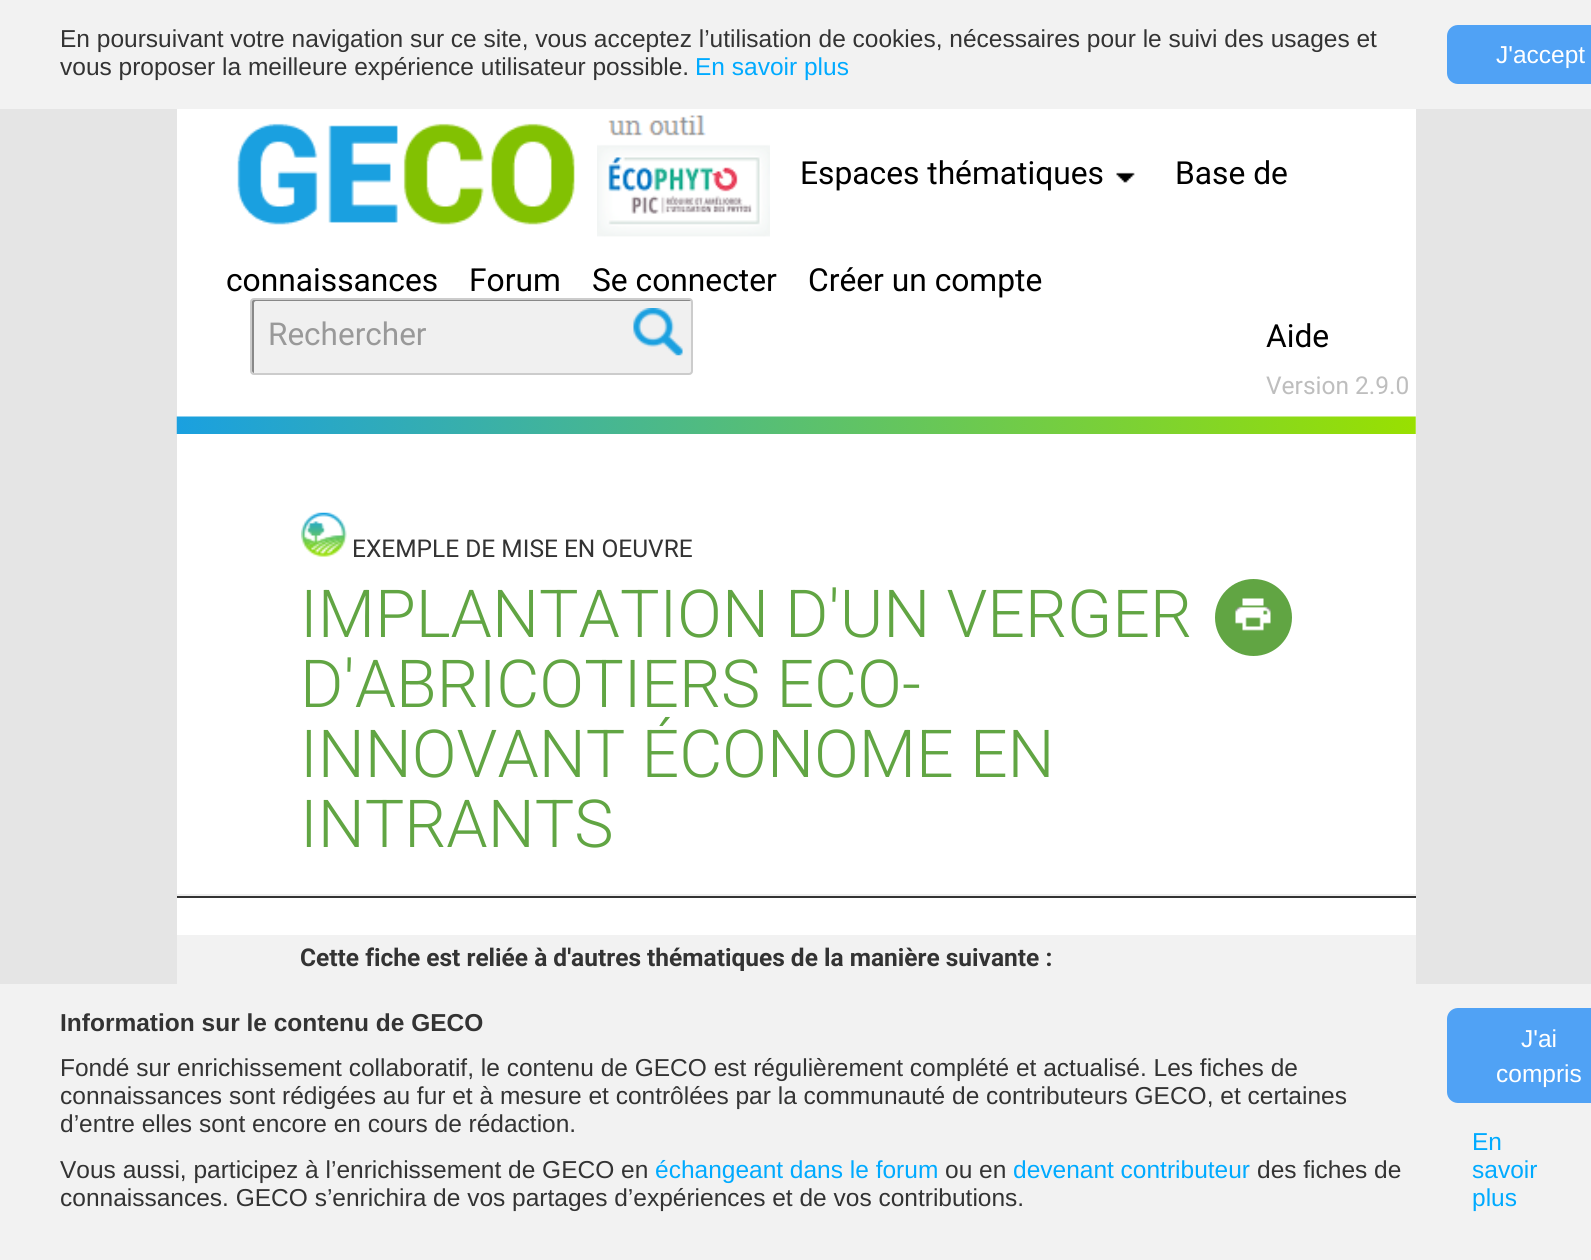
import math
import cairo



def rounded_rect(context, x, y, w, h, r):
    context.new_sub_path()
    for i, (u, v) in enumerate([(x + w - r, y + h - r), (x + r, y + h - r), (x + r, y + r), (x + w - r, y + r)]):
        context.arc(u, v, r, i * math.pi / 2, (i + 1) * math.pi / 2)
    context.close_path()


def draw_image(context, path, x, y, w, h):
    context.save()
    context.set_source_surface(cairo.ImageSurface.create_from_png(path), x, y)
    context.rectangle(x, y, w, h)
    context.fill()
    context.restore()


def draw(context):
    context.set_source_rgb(229 / 255, 229 / 255, 229 / 255)
    context.paint()
    context.set_source_rgb(242 / 255, 242 / 255, 242 / 255)
    context.rectangle(0, 0, 1591, 109)
    context.fill()
    context.set_source_rgb(80 / 255, 162 / 255, 245 / 255)
    rounded_rect(context, 1447, 25, 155, 59, 11)
    context.fill()
    context.set_source_rgb(242 / 255, 242 / 255, 242 / 255)
    context.rectangle(0, 984, 1591, 276)
    context.fill()
    context.set_source_rgb(80 / 255, 162 / 255, 245 / 255)
    rounded_rect(context, 1447, 1008, 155, 95, 11)
    context.fill()
    context.set_source_rgb(1, 1, 1)
    context.rectangle(177, 109, 1239, 826)
    context.fill()
    draw_image(context, "images/1.png", 176, 416, 1240, 18)
    draw_image(context, "images/2.png", 237, 123, 338, 102)
    draw_image(context, "images/3.png", 597, 115, 173, 122)
    draw_image(context, "images/4.png", 1116, 172, 19, 11)
    context.set_source_rgb(240 / 255, 240 / 255, 240 / 255)
    rounded_rect(context, 250, 298, 443, 77, 4)
    context.fill()
    context.set_source_rgb(136 / 255, 136 / 255, 136 / 255)
    context.new_path()
    context.move_to(256, 301)
    context.line_to(691, 301)
    context.curve_to(691, 300, 690, 299, 689, 299)
    context.line_to(254, 299)
    context.curve_to(253, 299, 252, 300, 252, 301)
    context.line_to(252, 371)
    context.curve_to(252, 372, 253, 373, 254, 373)
    context.line_to(254, 303)
    context.curve_to(254, 302, 255, 301, 256, 301)
    context.close_path()
    context.fill()
    rounded_rect(context, 251, 299, 441, 75, 3)
    context.set_source_rgb(204 / 255, 204 / 255, 204 / 255)
    context.stroke()
    draw_image(context, "images/5.png", 633, 308, 50, 48)
    draw_image(context, "images/6.png", 301, 512, 46, 45)
    context.set_source_rgb(97 / 255, 165 / 255, 67 / 255)
    context.arc(1253.5, 617.5, 38.5, 0, 2 * math.pi)
    context.fill()
    draw_image(context, "images/7.png", 1235, 598, 36, 33)
    context.set_source_rgb(51 / 255, 51 / 255, 51 / 255)
    context.rectangle(177, 896, 1239, 2)
    context.fill()
    context.set_source_rgb(238 / 255, 238 / 255, 238 / 255)
    context.rectangle(177, 894, 1239, 2)
    context.fill()
    context.set_source_rgb(242 / 255, 242 / 255, 242 / 255)
    context.rectangle(177, 935, 1239, 49)
    context.fill()
    context.select_font_face("Liberation Sans")
    context.set_font_size(24.5)
    context.set_source_rgb(51 / 255, 51 / 255, 51 / 255)
    context.move_to(60, 47)
    context.show_text("En poursuivant votre navigation sur ce site, vous acceptez l’utilisation de cookies, nécessaires pour le suivi des usages et")
    context.move_to(60, 75)
    context.show_text("vous proposer la meilleure expérience utilisateur possible.")
    context.set_source_rgb(0, 170 / 255, 1)
    context.move_to(695, 75)
    context.show_text("En savoir plus")
    context.set_source_rgb(1, 1, 1)
    context.move_to(1496, 63)
    context.show_text("J'accept")
    context.select_font_face("Liberation Sans", cairo.FontSlant.NORMAL, cairo.FontWeight.BOLD)
    context.set_source_rgb(51 / 255, 51 / 255, 51 / 255)
    context.move_to(60, 1031)
    context.show_text("Information sur le contenu de GECO")
    context.select_font_face("Liberation Sans")
    context.move_to(60, 1076)
    context.show_text("Fondé sur enrichissement collaboratif, le contenu de GECO est régulièrement complété et actualisé. Les fiches de")
    context.move_to(60, 1104)
    context.show_text("connaissances sont rédigées au fur et à mesure et contrôlées par la communauté de contributeurs GECO, et certaines")
    context.move_to(60, 1132)
    context.show_text("d’entre elles sont encore en cours de rédaction.")
    context.move_to(60, 1178)
    context.show_text("Vous aussi, participez à l’enrichissement de GECO en")
    context.set_source_rgb(0, 170 / 255, 1)
    context.move_to(655, 1178)
    context.show_text("échangeant dans le forum")
    context.set_source_rgb(51 / 255, 51 / 255, 51 / 255)
    context.move_to(945, 1178)
    context.show_text("ou en")
    context.set_source_rgb(0, 170 / 255, 1)
    context.move_to(1013, 1178)
    context.show_text("devenant contributeur")
    context.set_source_rgb(51 / 255, 51 / 255, 51 / 255)
    context.move_to(1257, 1178)
    context.show_text("des fiches de")
    context.move_to(60, 1206)
    context.show_text("connaissances. GECO s’enrichira de vos partages d’expériences et de vos contributions.")
    context.set_source_rgb(1, 1, 1)
    context.move_to(1521, 1047)
    context.show_text("J'ai")
    context.move_to(1496, 1082)
    context.show_text("compris")
    context.set_source_rgb(0, 170 / 255, 1)
    context.move_to(1472, 1150)
    context.show_text("En")
    context.move_to(1472, 1178)
    context.show_text("savoir")
    context.move_to(1472, 1206)
    context.show_text("plus")
    context.select_font_face("Roboto")
    context.set_font_size(31.75)
    context.set_source_rgb(0, 0, 0)
    context.move_to(800, 184)
    context.show_text("Espaces thématiques")
    context.move_to(1175, 184)
    context.show_text("Base de")
    context.move_to(226, 291)
    context.show_text("connaissances")
    context.move_to(469, 291)
    context.show_text("Forum")
    context.move_to(592, 291)
    context.show_text("Se connecter")
    context.move_to(808, 291)
    context.show_text("Créer un compte")
    context.set_font_size(31.5)
    context.set_source_rgb(153 / 255, 153 / 255, 153 / 255)
    context.move_to(268, 345)
    context.show_text("Rechercher")
    context.set_font_size(31.75)
    context.set_source_rgb(0, 0, 0)
    context.move_to(1266, 347)
    context.show_text("Aide")
    context.set_font_size(24.5)
    context.set_source_rgb(190 / 255, 190 / 255, 190 / 255)
    context.move_to(1266, 394)
    context.show_text("Version 2.9.0")
    context.set_source_rgb(51 / 255, 51 / 255, 51 / 255)
    context.move_to(352, 557)
    context.show_text("EXEMPLE DE MISE EN OEUVRE")
    context.select_font_face("Roboto Light")
    context.set_font_size(66.2)
    context.set_source_rgb(97 / 255, 165 / 255, 67 / 255)
    context.move_to(300, 637)
    context.show_text("IMPLANTATION D'UN VERGER")
    context.move_to(300, 707)
    context.show_text("D'ABRICOTIERS ECO-")
    context.move_to(300, 777)
    context.show_text("INNOVANT ÉCONOME EN")
    context.move_to(300, 847)
    context.show_text("INTRANTS")
    context.select_font_face("Roboto", cairo.FontSlant.NORMAL, cairo.FontWeight.BOLD)
    context.set_font_size(24.5)
    context.set_source_rgb(51 / 255, 51 / 255, 51 / 255)
    context.move_to(300, 966)
    context.show_text("Cette fiche est reliée à d'autres thématiques de la manière suivante :")


surface = cairo.ImageSurface(cairo.Format.RGB24, 1591, 1260)
context = cairo.Context(surface)
options = cairo.FontOptions()
options.set_hint_metrics(cairo.HintMetrics.OFF)
options.set_hint_style(cairo.HintStyle.NONE)
context.set_font_options(options)
context.set_miter_limit(4)
draw(context)
surface.write_to_png("out.png")
